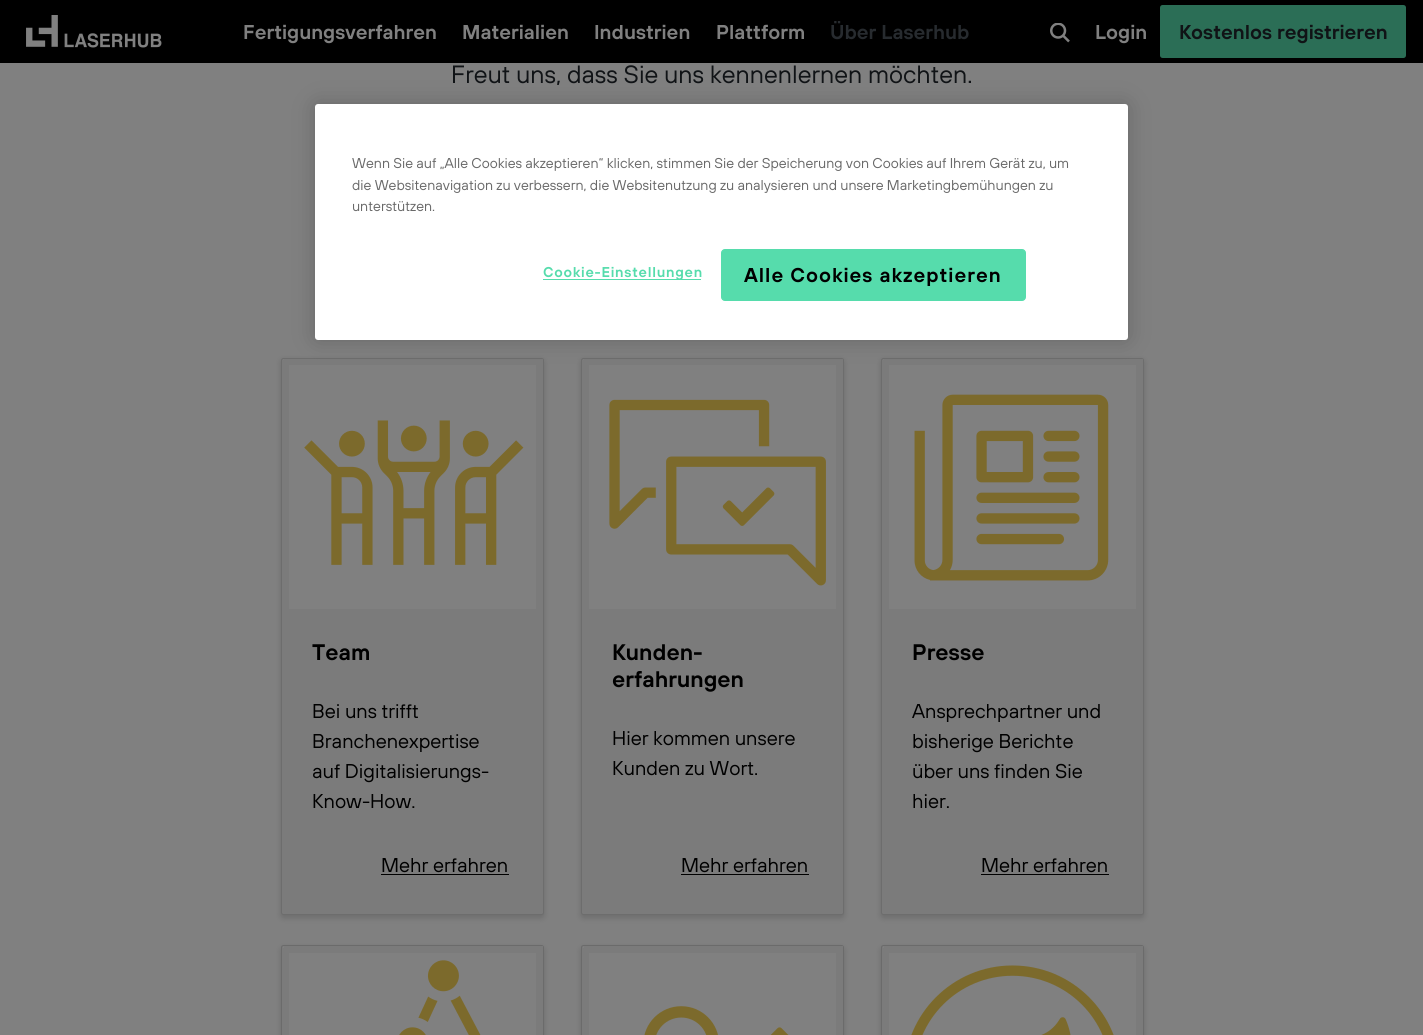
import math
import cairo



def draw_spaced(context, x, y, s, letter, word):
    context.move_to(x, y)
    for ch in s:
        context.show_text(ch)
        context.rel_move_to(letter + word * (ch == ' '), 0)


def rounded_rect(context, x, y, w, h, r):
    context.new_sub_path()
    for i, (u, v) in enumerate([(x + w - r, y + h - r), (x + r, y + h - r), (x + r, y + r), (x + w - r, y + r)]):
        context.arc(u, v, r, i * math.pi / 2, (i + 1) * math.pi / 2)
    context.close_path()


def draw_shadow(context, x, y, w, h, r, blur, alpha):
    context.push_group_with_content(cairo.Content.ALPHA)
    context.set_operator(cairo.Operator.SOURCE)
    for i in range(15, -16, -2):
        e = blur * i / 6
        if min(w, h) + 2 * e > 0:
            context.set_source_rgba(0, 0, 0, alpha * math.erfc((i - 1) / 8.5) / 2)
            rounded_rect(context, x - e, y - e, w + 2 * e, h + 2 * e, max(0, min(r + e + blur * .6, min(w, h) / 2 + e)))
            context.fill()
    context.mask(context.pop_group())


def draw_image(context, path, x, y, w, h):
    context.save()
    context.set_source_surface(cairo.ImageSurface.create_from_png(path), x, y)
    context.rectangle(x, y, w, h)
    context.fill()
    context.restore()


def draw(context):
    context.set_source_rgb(128 / 255, 128 / 255, 128 / 255)
    context.paint()
    context.set_source_rgb(0, 0, 0)
    context.rectangle(0, 0, 1423, 63)
    context.fill()
    draw_image(context, "images/1.png", 26, 15, 136, 33)
    draw_image(context, "images/2.png", 1050, 23, 20, 20)
    context.set_source_rgb(43 / 255, 110 / 255, 86 / 255)
    rounded_rect(context, 1162, 7, 242, 49, 0.5)
    context.fill_preserve()
    context.set_line_width(4)
    context.stroke()
    context.set_source_rgb(0, 0, 0)
    draw_shadow(context, 281, 360, 263, 558, 2.5, 3, 0.15)
    context.set_source_rgb(123 / 255, 123 / 255, 123 / 255)
    rounded_rect(context, 281, 358, 263, 557, 2.5)
    context.fill()
    rounded_rect(context, 281.5, 358.5, 262, 556, 2)
    context.set_source_rgba(0, 0, 0, 0.12)
    context.set_line_width(1)
    context.stroke()
    context.set_source_rgb(128 / 255, 128 / 255, 128 / 255)
    context.new_path()
    context.move_to(284, 359)
    context.line_to(542, 359)
    context.curve_to(542.5, 359, 543, 359.5, 543, 360)
    context.line_to(543, 609)
    context.line_to(283, 609)
    context.line_to(283, 360)
    context.curve_to(283, 359.5, 283.5, 359, 284, 359)
    context.close_path()
    context.fill()
    context.set_source_rgb(123 / 255, 123 / 255, 123 / 255)
    context.rectangle(284, 359, 259, 6)
    context.fill()
    context.rectangle(536, 360, 7, 249)
    context.fill()
    context.rectangle(283, 360, 6, 249)
    context.fill()
    draw_image(context, "images/3.png", 304, 420, 220, 145)
    context.set_source_rgb(0, 0, 0)
    context.rectangle(381, 874, 128, 1)
    context.fill()
    context.set_source_rgb(0, 0, 0)
    draw_shadow(context, 581, 360, 263, 558, 2.5, 3, 0.15)
    context.set_source_rgb(123 / 255, 123 / 255, 123 / 255)
    rounded_rect(context, 581, 358, 263, 557, 2.5)
    context.fill()
    rounded_rect(context, 581.5, 358.5, 262, 556, 2)
    context.set_source_rgba(0, 0, 0, 0.12)
    context.stroke()
    context.set_source_rgb(128 / 255, 128 / 255, 128 / 255)
    context.new_path()
    context.move_to(584, 359)
    context.line_to(842, 359)
    context.curve_to(842.5, 359, 843, 359.5, 843, 360)
    context.line_to(843, 609)
    context.line_to(583, 609)
    context.line_to(583, 360)
    context.curve_to(583, 359.5, 583.5, 359, 584, 359)
    context.close_path()
    context.fill()
    context.set_source_rgb(123 / 255, 123 / 255, 123 / 255)
    context.rectangle(584, 359, 259, 6)
    context.fill()
    context.rectangle(836, 360, 7, 249)
    context.fill()
    context.rectangle(583, 360, 6, 249)
    context.fill()
    draw_image(context, "images/4.png", 609, 399, 217, 187)
    context.set_source_rgb(0, 0, 0)
    context.rectangle(681, 874, 128, 1)
    context.fill()
    context.set_source_rgb(0, 0, 0)
    draw_shadow(context, 881, 360, 263, 558, 2.5, 3, 0.15)
    context.set_source_rgb(123 / 255, 123 / 255, 123 / 255)
    rounded_rect(context, 881, 358, 263, 557, 2.5)
    context.fill()
    rounded_rect(context, 881.5, 358.5, 262, 556, 2)
    context.set_source_rgba(0, 0, 0, 0.12)
    context.stroke()
    context.set_source_rgb(128 / 255, 128 / 255, 128 / 255)
    context.new_path()
    context.move_to(884, 359)
    context.line_to(1142, 359)
    context.curve_to(1142.5, 359, 1143, 359.5, 1143, 360)
    context.line_to(1143, 609)
    context.line_to(883, 609)
    context.line_to(883, 360)
    context.curve_to(883, 359.5, 883.5, 359, 884, 359)
    context.close_path()
    context.fill()
    context.set_source_rgb(123 / 255, 123 / 255, 123 / 255)
    context.rectangle(884, 359, 259, 6)
    context.fill()
    context.rectangle(1136, 360, 7, 249)
    context.fill()
    context.rectangle(883, 360, 6, 249)
    context.fill()
    draw_image(context, "images/5.png", 914, 394, 195, 187)
    context.set_source_rgb(0, 0, 0)
    context.rectangle(981, 874, 128, 1)
    context.fill()
    context.set_source_rgb(0, 0, 0)
    draw_shadow(context, 281, 948, 263, 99, 2.5, 3, 0.15)
    context.set_source_rgb(123 / 255, 123 / 255, 123 / 255)
    rounded_rect(context, 281.5, 945.5, 262, 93, 2)
    context.fill_preserve()
    context.set_source_rgb(107 / 255, 107 / 255, 107 / 255)
    context.stroke()
    context.set_source_rgb(128 / 255, 128 / 255, 128 / 255)
    context.new_path()
    context.move_to(284, 946)
    context.line_to(542, 946)
    context.curve_to(542.5, 946, 543, 946.5, 543, 947)
    context.line_to(543, 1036)
    context.line_to(283, 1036)
    context.line_to(283, 947)
    context.curve_to(283, 946.5, 283.5, 946, 284, 946)
    context.close_path()
    context.fill()
    context.set_source_rgb(123 / 255, 123 / 255, 123 / 255)
    context.rectangle(284, 946, 259, 7)
    context.fill()
    context.rectangle(536, 948, 7, 87)
    context.fill()
    context.rectangle(283, 948, 6, 87)
    context.fill()
    draw_image(context, "images/6.png", 399, 960, 82, 75)
    context.set_source_rgb(0, 0, 0)
    draw_shadow(context, 581, 948, 263, 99, 2.5, 3, 0.15)
    context.set_source_rgb(123 / 255, 123 / 255, 123 / 255)
    rounded_rect(context, 581.5, 945.5, 262, 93, 2)
    context.fill_preserve()
    context.set_source_rgb(107 / 255, 107 / 255, 107 / 255)
    context.stroke()
    context.set_source_rgb(128 / 255, 128 / 255, 128 / 255)
    context.new_path()
    context.move_to(584, 946)
    context.line_to(842, 946)
    context.curve_to(842.5, 946, 843, 946.5, 843, 947)
    context.line_to(843, 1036)
    context.line_to(583, 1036)
    context.line_to(583, 947)
    context.curve_to(583, 946.5, 583.5, 946, 584, 946)
    context.close_path()
    context.fill()
    context.set_source_rgb(123 / 255, 123 / 255, 123 / 255)
    context.rectangle(584, 946, 259, 7)
    context.fill()
    context.rectangle(836, 948, 7, 87)
    context.fill()
    context.rectangle(583, 948, 6, 87)
    context.fill()
    draw_image(context, "images/7.png", 644, 1006, 145, 29)
    context.set_source_rgb(0, 0, 0)
    draw_shadow(context, 881, 948, 263, 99, 2.5, 3, 0.15)
    context.set_source_rgb(123 / 255, 123 / 255, 123 / 255)
    rounded_rect(context, 881.5, 945.5, 262, 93, 2)
    context.fill_preserve()
    context.set_source_rgb(107 / 255, 107 / 255, 107 / 255)
    context.stroke()
    context.set_source_rgb(128 / 255, 128 / 255, 128 / 255)
    context.new_path()
    context.move_to(884, 946)
    context.line_to(1142, 946)
    context.curve_to(1142.5, 946, 1143, 946.5, 1143, 947)
    context.line_to(1143, 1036)
    context.line_to(883, 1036)
    context.line_to(883, 947)
    context.curve_to(883, 946.5, 883.5, 946, 884, 946)
    context.close_path()
    context.fill()
    context.set_source_rgb(123 / 255, 123 / 255, 123 / 255)
    context.rectangle(884, 946, 259, 7)
    context.fill()
    context.rectangle(1136, 948, 7, 87)
    context.fill()
    context.rectangle(883, 948, 6, 87)
    context.fill()
    draw_image(context, "images/8.png", 911, 965, 203, 70)
    context.set_source_rgb(0, 0, 0)
    draw_shadow(context, 315, 104, 813, 236, 3, 11, 0.2)
    context.set_source_rgb(1, 1, 1)
    rounded_rect(context, 315, 104, 813, 236, 3)
    context.fill()
    context.set_source_rgb(86 / 255, 220 / 255, 172 / 255)
    context.rectangle(543, 279, 158, 1)
    context.fill()
    rounded_rect(context, 721.5, 249.5, 304, 51, 3.5)
    context.fill_preserve()
    context.stroke()
    context.select_font_face("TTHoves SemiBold")
    context.set_font_size(20)
    context.set_source_rgb(128 / 255, 128 / 255, 128 / 255)
    context.move_to(243, 39)
    context.show_text("Fertigungsverfahren")
    context.move_to(462, 39)
    context.show_text("Materialien")
    context.move_to(594, 39)
    context.show_text("Industrien")
    context.move_to(716, 39)
    context.show_text("Plattform")
    context.set_source_rgb(39 / 255, 43 / 255, 47 / 255)
    context.move_to(830, 39)
    context.show_text("Über Laserhub")
    context.set_source_rgb(128 / 255, 128 / 255, 128 / 255)
    context.move_to(1095, 39)
    context.show_text("Login")
    context.set_source_rgb(16 / 255, 19 / 255, 22 / 255)
    context.move_to(1179, 39)
    context.show_text("Kostenlos registrieren")
    context.select_font_face("TTHoves")
    context.set_font_size(25)
    context.move_to(451, 83)
    context.show_text("Freut uns, dass Sie uns kennenlernen möchten.")
    context.select_font_face("TTHoves SemiBold")
    context.set_font_size(22.5)
    context.set_source_rgb(0, 0, 0)
    context.move_to(312, 660)
    context.show_text("Team")
    context.select_font_face("TTHoves")
    context.set_font_size(20)
    context.move_to(312, 718)
    context.show_text("Bei uns trifft")
    context.move_to(312, 748)
    context.show_text("Branchenexpertise")
    context.move_to(312, 778)
    context.show_text("auf Digitalisierungs-")
    context.move_to(312, 808)
    context.show_text("Know-How.")
    context.move_to(381, 872)
    context.show_text("Mehr erfahren")
    context.select_font_face("TTHoves SemiBold")
    context.set_font_size(22.5)
    context.move_to(612, 660)
    context.show_text("Kunden-")
    context.move_to(612, 687)
    context.show_text("erfahrungen")
    context.select_font_face("TTHoves")
    context.set_font_size(20)
    context.move_to(612, 745)
    context.show_text("Hier kommen unsere")
    context.move_to(612, 775)
    context.show_text("Kunden zu Wort.")
    context.move_to(681, 872)
    context.show_text("Mehr erfahren")
    context.select_font_face("TTHoves SemiBold")
    context.set_font_size(22.5)
    context.move_to(912, 660)
    context.show_text("Presse")
    context.select_font_face("TTHoves")
    context.set_font_size(20)
    context.move_to(912, 718)
    context.show_text("Ansprechpartner und")
    context.move_to(912, 748)
    context.show_text("bisherige Berichte")
    context.move_to(912, 778)
    context.show_text("über uns finden Sie")
    context.move_to(912, 808)
    context.show_text("hier.")
    context.move_to(981, 872)
    context.show_text("Mehr erfahren")
    context.set_font_size(14.23)
    context.set_source_rgb(105 / 255, 105 / 255, 105 / 255)
    context.move_to(352, 168)
    context.show_text("Wenn Sie auf „Alle Cookies akzeptieren“ klicken, stimmen Sie der Speicherung von Cookies auf Ihrem Gerät zu, um")
    context.move_to(352, 190)
    context.show_text("die Websitenavigation zu verbessern, die Websitenutzung zu analysieren und unsere Marketingbemühungen zu")
    context.move_to(352, 211)
    context.show_text("unterstützen.")
    context.select_font_face("TTHoves SemiBold")
    context.set_source_rgb(86 / 255, 220 / 255, 172 / 255)
    draw_spaced(context, 543, 277, "Cookie-Einstellungen", 0.75, 0)
    context.set_font_size(20)
    context.set_source_rgb(0, 0, 0)
    draw_spaced(context, 744, 282, "Alle Cookies akzeptieren", 1, 0)


surface = cairo.ImageSurface(cairo.Format.RGB24, 1423, 1035)
context = cairo.Context(surface)
options = cairo.FontOptions()
options.set_hint_metrics(cairo.HintMetrics.OFF)
options.set_hint_style(cairo.HintStyle.NONE)
context.set_font_options(options)
context.set_miter_limit(4)
draw(context)
surface.write_to_png("out.png")
